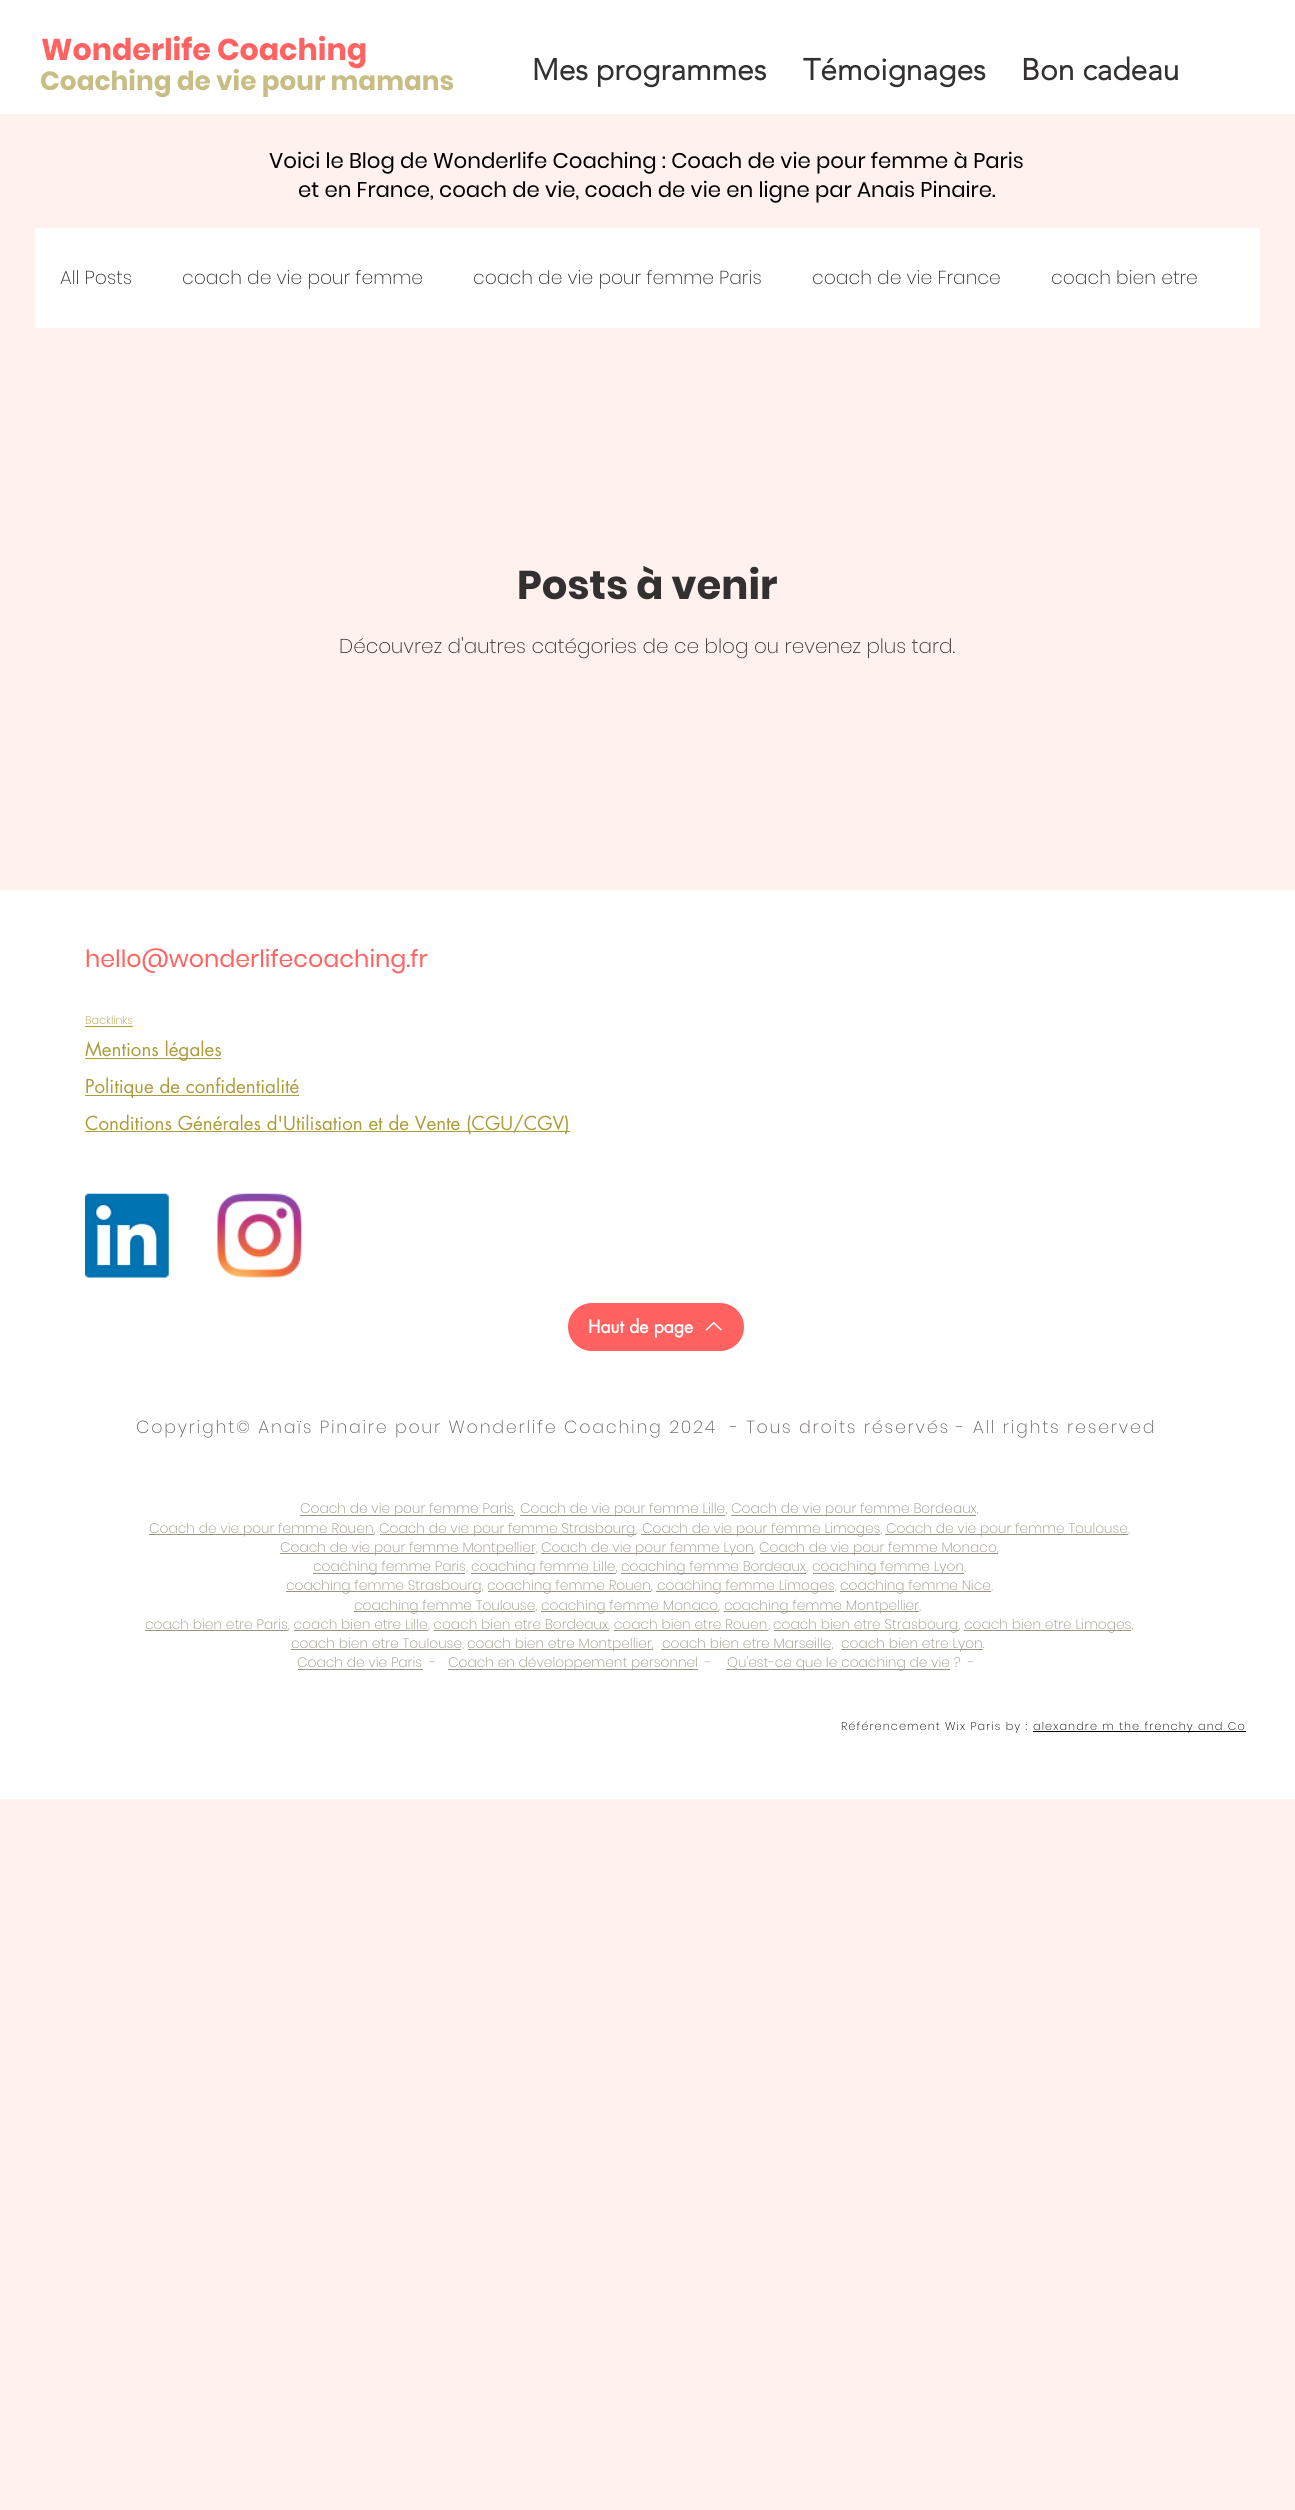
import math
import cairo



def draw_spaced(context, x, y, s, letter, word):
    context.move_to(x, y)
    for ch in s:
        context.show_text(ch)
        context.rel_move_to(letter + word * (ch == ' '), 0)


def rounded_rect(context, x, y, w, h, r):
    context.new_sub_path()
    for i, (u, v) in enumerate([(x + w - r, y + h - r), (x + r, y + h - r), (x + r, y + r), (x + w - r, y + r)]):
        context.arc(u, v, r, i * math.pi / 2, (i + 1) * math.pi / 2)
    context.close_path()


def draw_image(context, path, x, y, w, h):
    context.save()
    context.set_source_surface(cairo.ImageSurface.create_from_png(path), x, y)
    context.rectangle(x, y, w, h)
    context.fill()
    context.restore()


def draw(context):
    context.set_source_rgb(1, 242 / 255, 238 / 255)
    context.paint()
    context.set_source_rgb(1, 1, 1)
    context.rectangle(0, 0, 1295, 114)
    context.fill()
    context.rectangle(35, 228, 1225, 100)
    context.fill()
    context.rectangle(0, 890, 1295, 909)
    context.fill()
    context.set_source_rgb(172 / 255, 156 / 255, 58 / 255)
    context.rectangle(85, 1026, 48, 1)
    context.fill()
    context.rectangle(85, 1058, 136, 1)
    context.fill()
    context.rectangle(85, 1095, 214, 1)
    context.fill()
    context.rectangle(85, 1131, 485, 1)
    context.fill()
    draw_image(context, "images/1.png", 85, 1193, 84, 85)
    draw_image(context, "images/2.png", 217, 1193, 85, 85)
    context.set_source_rgb(1, 98 / 255, 96 / 255)
    rounded_rect(context, 568, 1303, 176, 48, 24)
    context.fill()
    draw_image(context, "images/3.png", 705, 1322, 17, 9)
    context.set_source_rgb(152 / 255, 147 / 255, 131 / 255)
    context.rectangle(300, 1515, 214, 1)
    context.fill()
    context.rectangle(520, 1515, 205, 1)
    context.fill()
    context.rectangle(731, 1515, 245, 1)
    context.fill()
    context.rectangle(149, 1534, 225, 1)
    context.fill()
    context.rectangle(380, 1534, 256, 1)
    context.fill()
    context.rectangle(641, 1534, 239, 1)
    context.fill()
    context.rectangle(885, 1534, 243, 1)
    context.fill()
    context.rectangle(280, 1553, 255, 1)
    context.fill()
    context.rectangle(541, 1553, 213, 1)
    context.fill()
    context.rectangle(760, 1553, 238, 1)
    context.fill()
    context.rectangle(313, 1573, 152, 1)
    context.fill()
    context.rectangle(471, 1573, 145, 1)
    context.fill()
    context.rectangle(621, 1573, 185, 1)
    context.fill()
    context.rectangle(813, 1573, 151, 1)
    context.fill()
    context.rectangle(286, 1591, 195, 1)
    context.fill()
    context.rectangle(488, 1591, 163, 1)
    context.fill()
    context.rectangle(656, 1591, 178, 1)
    context.fill()
    context.rectangle(840, 1591, 151, 1)
    context.fill()
    context.rectangle(354, 1611, 181, 1)
    context.fill()
    context.rectangle(541, 1611, 178, 1)
    context.fill()
    context.rectangle(724, 1611, 195, 1)
    context.fill()
    context.rectangle(145, 1630, 143, 1)
    context.fill()
    context.rectangle(294, 1630, 134, 1)
    context.fill()
    context.rectangle(434, 1630, 175, 1)
    context.fill()
    context.rectangle(614, 1630, 154, 1)
    context.fill()
    context.rectangle(774, 1630, 185, 1)
    context.fill()
    context.rectangle(964, 1630, 167, 1)
    context.fill()
    context.rectangle(291, 1649, 170, 1)
    context.fill()
    context.rectangle(468, 1649, 185, 1)
    context.fill()
    context.rectangle(661, 1649, 170, 1)
    context.fill()
    context.rectangle(841, 1649, 142, 1)
    context.fill()
    context.rectangle(298, 1669, 125, 1)
    context.fill()
    context.rectangle(448, 1669, 250, 1)
    context.fill()
    context.rectangle(726, 1669, 224, 1)
    context.fill()
    context.set_source_rgb(0, 0, 0)
    context.rectangle(1033, 1731, 213, 1)
    context.fill()
    context.select_font_face("Poppins", cairo.FontSlant.NORMAL, cairo.FontWeight.BOLD)
    context.set_font_size(30)
    context.set_source_rgb(1, 98 / 255, 96 / 255)
    context.move_to(41, 60)
    context.show_text("Wonderlife Coaching")
    context.set_font_size(26.25)
    context.set_source_rgb(200 / 255, 190 / 255, 133 / 255)
    context.move_to(40, 90)
    context.show_text("Coaching de vie pour mamans")
    context.select_font_face("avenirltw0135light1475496", cairo.FontSlant.NORMAL, cairo.FontWeight.BOLD)
    context.set_font_size(30)
    context.set_source_rgb(51 / 255, 48 / 255, 48 / 255)
    context.move_to(532, 80)
    context.show_text("Mes programmes")
    context.move_to(803, 80)
    context.show_text("Témoignages")
    context.move_to(1021, 80)
    context.show_text("Bon cadeau")
    context.select_font_face("Poppins")
    context.set_font_size(21.25)
    context.set_source_rgb(0, 0, 0)
    context.move_to(269, 168)
    context.show_text("Voici le Blog de Wonderlife Coaching : Coach de vie pour femme à Paris")
    context.move_to(298, 197)
    context.show_text("et en France, coach de vie, coach de vie en ligne par Anais Pinaire.")
    context.select_font_face("Poppins ExtraLight")
    context.set_font_size(18.75)
    context.set_source_rgb(51 / 255, 48 / 255, 48 / 255)
    context.move_to(60, 284)
    context.show_text("All Posts")
    context.move_to(182, 284)
    context.show_text("coach de vie pour femme")
    context.move_to(473, 284)
    context.show_text("coach de vie pour femme Paris")
    context.move_to(812, 284)
    context.show_text("coach de vie France")
    context.move_to(1051, 284)
    context.show_text("coach bien etre")
    context.select_font_face("Poppins", cairo.FontSlant.NORMAL, cairo.FontWeight.BOLD)
    context.set_font_size(40)
    context.move_to(517, 599)
    context.show_text("Posts à venir")
    context.select_font_face("Poppins ExtraLight")
    context.set_font_size(20)
    context.move_to(339, 653)
    context.show_text("Découvrez d'autres catégories de ce blog ou revenez plus tard.")
    context.select_font_face("Poppins")
    context.set_font_size(23.75)
    context.set_source_rgb(1, 98 / 255, 96 / 255)
    context.move_to(85, 967)
    context.show_text("hello@wonderlifecoaching.fr")
    context.select_font_face("Poppins ExtraLight")
    context.set_font_size(11.25)
    context.set_source_rgb(172 / 255, 156 / 255, 58 / 255)
    context.move_to(85, 1024)
    context.show_text("Backlinks")
    context.select_font_face("futura")
    context.set_font_size(18.75)
    context.move_to(85, 1056)
    context.show_text("Mentions légales")
    context.move_to(85, 1093)
    context.show_text("Politique de confidentialité")
    context.move_to(85, 1130)
    context.show_text("Conditions Générales d'Utilisation et de Vente (CGU/CGV)")
    context.select_font_face("futura", cairo.FontSlant.NORMAL, cairo.FontWeight.BOLD)
    context.set_font_size(17.5)
    context.set_source_rgb(1, 1, 1)
    context.move_to(588, 1333)
    context.show_text("Haut de page")
    context.select_font_face("Poppins ExtraLight")
    context.set_source_rgb(102 / 255, 97 / 255, 95 / 255)
    draw_spaced(context, 136, 1433, "Copyright© Anaïs Pinaire pour Wonderlife Coaching 2024  - Tous droits réservés - All rights reserved", 1.75, 0)
    context.set_font_size(13.75)
    context.set_source_rgb(152 / 255, 147 / 255, 131 / 255)
    context.move_to(300, 1513)
    context.show_text("Coach de vie pour femme Paris,")
    context.move_to(520, 1513)
    context.show_text("Coach de vie pour femme Lille,")
    context.move_to(731, 1513)
    context.show_text("Coach de vie pour femme Bordeaux,")
    context.move_to(149, 1533)
    context.show_text("Coach de vie pour femme Rouen,")
    context.move_to(379, 1533)
    context.show_text("Coach de vie pour femme Strasbourg,")
    context.move_to(642, 1533)
    context.show_text("Coach de vie pour femme Limoges,")
    context.move_to(886, 1533)
    context.show_text("Coach de vie pour femme Toulouse,")
    context.move_to(280, 1552)
    context.show_text("Coach de vie pour femme Montpellier,")
    context.move_to(541, 1552)
    context.show_text("Coach de vie pour femme Lyon,")
    context.move_to(759, 1552)
    context.show_text("Coach de vie pour femme Monaco,")
    context.move_to(313, 1571)
    context.show_text("coaching femme Paris,")
    context.move_to(471, 1571)
    context.show_text("coaching femme Lille,")
    context.move_to(621, 1571)
    context.show_text("coaching femme Bordeaux,")
    context.move_to(812, 1571)
    context.show_text("coaching femme Lyon,")
    context.move_to(286, 1590)
    context.show_text("coaching femme Strasbourg,")
    context.move_to(487, 1590)
    context.show_text("coaching femme Rouen,")
    context.move_to(657, 1590)
    context.show_text("coaching femme Limoges,")
    context.move_to(840, 1590)
    context.show_text("coaching femme Nice,")
    context.move_to(354, 1610)
    context.show_text("coaching femme Toulouse,")
    context.move_to(541, 1610)
    context.show_text("coaching femme Monaco,")
    context.move_to(724, 1610)
    context.show_text("coaching femme Montpellier,")
    context.move_to(145, 1629)
    context.show_text("coach bien etre Paris, coach bien etre Lille, coach bien etre Bordeaux")
    context.move_to(608, 1629)
    context.show_text(", coach bien etre Rouen")
    context.move_to(768, 1629)
    context.show_text(",")
    context.move_to(773, 1629)
    context.show_text("coach bien etre Strasbourg,")
    context.move_to(964, 1629)
    context.show_text("coach bien etre Limoges,")
    context.move_to(291, 1648)
    context.show_text("coach bien etre Toulouse,")
    context.move_to(467, 1648)
    context.show_text("coach bien etre Montpellier,")
    context.move_to(662, 1648)
    context.show_text("coach bien etre Marseille,")
    context.move_to(841, 1648)
    context.show_text("coach bien etre Lyon.")
    context.move_to(297, 1667)
    context.show_text("Coach de vie Paris")
    context.move_to(430, 1667)
    context.show_text("-")
    context.move_to(448, 1667)
    context.show_text("Coach en développement personnel")
    context.move_to(705, 1667)
    context.show_text("-")
    context.move_to(727, 1667)
    context.show_text("Qu'est-ce que le coaching de vie ?  -")
    context.set_font_size(11.25)
    context.set_source_rgb(0, 0, 0)
    draw_spaced(context, 841, 1730, "Référencement Wix Paris by :", 1.1, 0)
    draw_spaced(context, 1033, 1730, "alexandre m the frenchy and Co", 1.1, 0)


surface = cairo.ImageSurface(cairo.Format.RGB24, 1295, 2510)
context = cairo.Context(surface)
options = cairo.FontOptions()
options.set_hint_metrics(cairo.HintMetrics.OFF)
options.set_hint_style(cairo.HintStyle.NONE)
context.set_font_options(options)
context.set_miter_limit(4)
draw(context)
surface.write_to_png("out.png")
